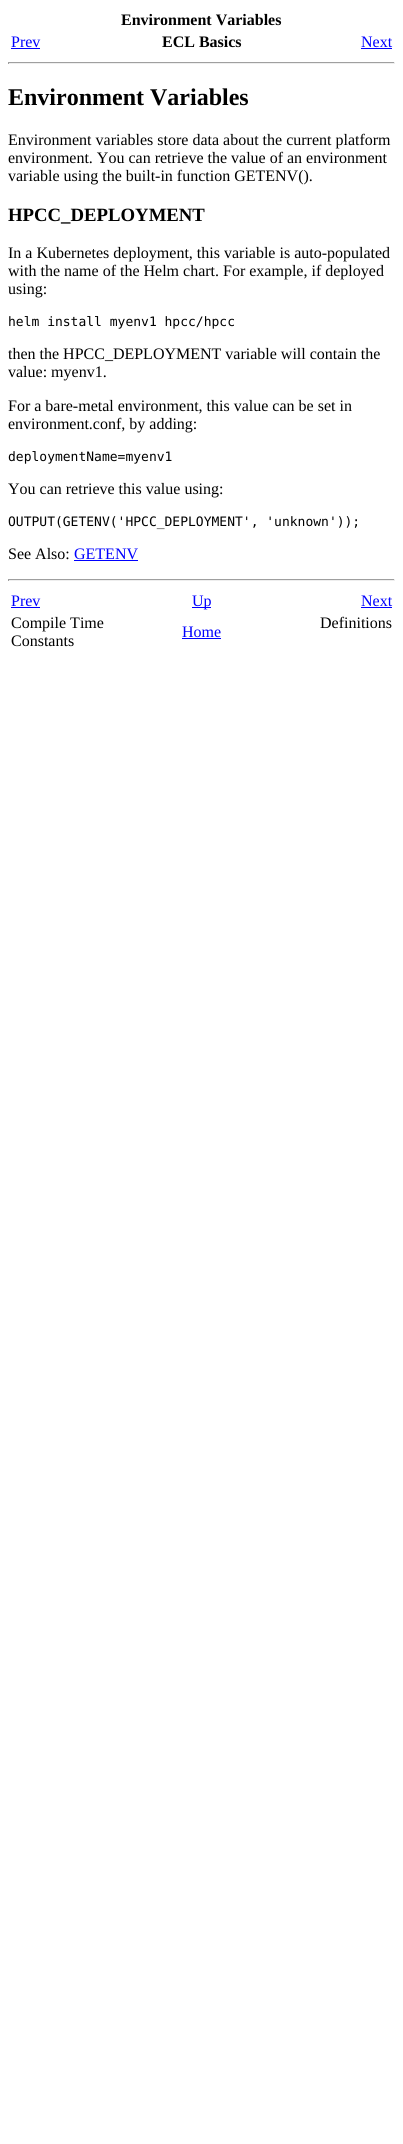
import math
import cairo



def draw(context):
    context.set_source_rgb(1, 1, 1)
    context.paint()
    context.set_source_rgb(0, 0, 1)
    context.rectangle(11, 48, 29, 1)
    context.fill()
    context.rectangle(361, 48, 31, 1)
    context.fill()
    context.set_source_rgb(159 / 255, 159 / 255, 159 / 255)
    context.rectangle(8, 62, 387, 1)
    context.fill()
    context.set_source_rgb(238 / 255, 238 / 255, 238 / 255)
    context.rectangle(394, 62, 1, 2)
    context.fill()
    context.rectangle(8, 63, 387, 1)
    context.fill()
    context.set_source_rgb(159 / 255, 159 / 255, 159 / 255)
    context.rectangle(8, 62, 1, 2)
    context.fill()
    context.set_source_rgb(0, 0, 1)
    context.rectangle(74, 560, 64, 1)
    context.fill()
    context.set_source_rgb(159 / 255, 159 / 255, 159 / 255)
    context.rectangle(8, 579, 387, 1)
    context.fill()
    context.set_source_rgb(238 / 255, 238 / 255, 238 / 255)
    context.rectangle(394, 579, 1, 2)
    context.fill()
    context.rectangle(8, 580, 387, 1)
    context.fill()
    context.set_source_rgb(159 / 255, 159 / 255, 159 / 255)
    context.rectangle(8, 579, 1, 2)
    context.fill()
    context.set_source_rgb(0, 0, 1)
    context.rectangle(11, 607, 29, 1)
    context.fill()
    context.rectangle(192, 607, 19, 1)
    context.fill()
    context.rectangle(361, 607, 31, 1)
    context.fill()
    context.rectangle(182, 638, 39, 1)
    context.fill()
    context.select_font_face("Liberation Serif", cairo.FontSlant.NORMAL, cairo.FontWeight.BOLD)
    context.set_font_size(16)
    context.set_source_rgb(0, 0, 0)
    context.move_to(121, 25)
    context.show_text("Environment Variables")
    context.select_font_face("Liberation Serif")
    context.set_source_rgb(0, 0, 1)
    context.move_to(11, 47)
    context.show_text("Prev")
    context.select_font_face("Liberation Serif", cairo.FontSlant.NORMAL, cairo.FontWeight.BOLD)
    context.set_source_rgb(0, 0, 0)
    context.move_to(162, 47)
    context.show_text("ECL Basics")
    context.select_font_face("Liberation Serif")
    context.set_source_rgb(0, 0, 1)
    context.move_to(361, 47)
    context.show_text("Next")
    context.select_font_face("Liberation Serif", cairo.FontSlant.NORMAL, cairo.FontWeight.BOLD)
    context.set_font_size(24)
    context.set_source_rgb(0, 0, 0)
    context.move_to(8, 105)
    context.show_text("Environment Variables")
    context.select_font_face("Liberation Serif")
    context.set_font_size(16)
    context.move_to(8, 145)
    context.show_text("Environment variables store data about the current platform")
    context.move_to(8, 163)
    context.show_text("environment. You can retrieve the value of an environment")
    context.move_to(8, 181)
    context.show_text("variable using the built-in function GETENV().")
    context.select_font_face("Liberation Serif", cairo.FontSlant.NORMAL, cairo.FontWeight.BOLD)
    context.set_font_size(18.75)
    context.move_to(8, 221)
    context.show_text("HPCC_DEPLOYMENT")
    context.select_font_face("Liberation Serif")
    context.set_font_size(16)
    context.move_to(8, 258)
    context.show_text("In a Kubernetes deployment, this variable is auto-populated")
    context.move_to(8, 276)
    context.show_text("with the name of the Helm chart. For example, if deployed")
    context.move_to(8, 294)
    context.show_text("using:")
    context.select_font_face("DejaVu Sans Mono")
    context.set_font_size(13)
    context.move_to(8, 326)
    context.show_text("helm install myenv1 hpcc/hpcc")
    context.select_font_face("Liberation Serif")
    context.set_font_size(16)
    context.move_to(8, 359)
    context.show_text("then the HPCC_DEPLOYMENT variable will contain the")
    context.move_to(8, 377)
    context.show_text("value: myenv1.")
    context.move_to(8, 411)
    context.show_text("For a bare-metal environment, this value can be set in")
    context.move_to(8, 429)
    context.show_text("environment.conf, by adding:")
    context.select_font_face("DejaVu Sans Mono")
    context.set_font_size(13)
    context.move_to(8, 461)
    context.show_text("deploymentName=myenv1")
    context.select_font_face("Liberation Serif")
    context.set_font_size(16)
    context.move_to(8, 494)
    context.show_text("You can retrieve this value using:")
    context.select_font_face("DejaVu Sans Mono")
    context.set_font_size(13)
    context.move_to(8, 526)
    context.show_text("OUTPUT(GETENV('HPCC_DEPLOYMENT', 'unknown'));")
    context.select_font_face("Liberation Serif")
    context.set_font_size(16)
    context.move_to(8, 559)
    context.show_text("See Also:")
    context.set_source_rgb(0, 0, 1)
    context.move_to(74, 559)
    context.show_text("GETENV")
    context.move_to(11, 606)
    context.show_text("Prev")
    context.move_to(192, 606)
    context.show_text("Up")
    context.move_to(361, 606)
    context.show_text("Next")
    context.set_source_rgb(0, 0, 0)
    context.move_to(11, 628)
    context.show_text("Compile Time")
    context.move_to(11, 646)
    context.show_text("Constants")
    context.move_to(320, 628)
    context.show_text("Definitions")
    context.set_source_rgb(0, 0, 1)
    context.move_to(182, 637)
    context.show_text("Home")


surface = cairo.ImageSurface(cairo.Format.RGB24, 403, 2144)
context = cairo.Context(surface)
options = cairo.FontOptions()
options.set_hint_metrics(cairo.HintMetrics.OFF)
options.set_hint_style(cairo.HintStyle.NONE)
context.set_font_options(options)
context.set_miter_limit(4)
draw(context)
surface.write_to_png("out.png")
